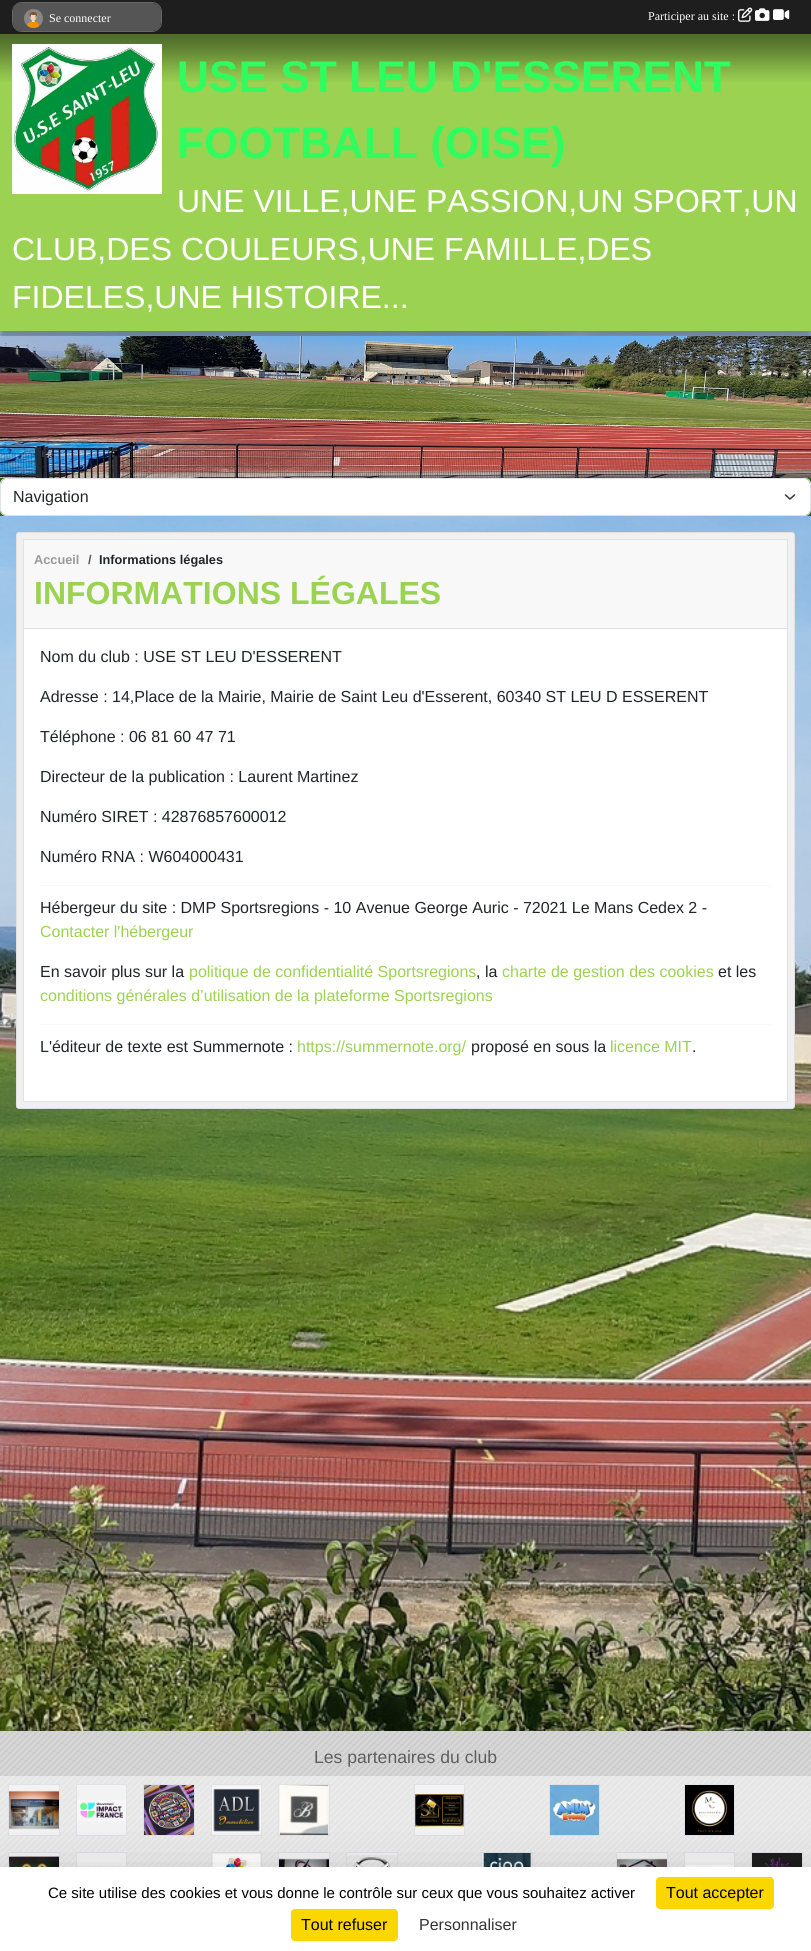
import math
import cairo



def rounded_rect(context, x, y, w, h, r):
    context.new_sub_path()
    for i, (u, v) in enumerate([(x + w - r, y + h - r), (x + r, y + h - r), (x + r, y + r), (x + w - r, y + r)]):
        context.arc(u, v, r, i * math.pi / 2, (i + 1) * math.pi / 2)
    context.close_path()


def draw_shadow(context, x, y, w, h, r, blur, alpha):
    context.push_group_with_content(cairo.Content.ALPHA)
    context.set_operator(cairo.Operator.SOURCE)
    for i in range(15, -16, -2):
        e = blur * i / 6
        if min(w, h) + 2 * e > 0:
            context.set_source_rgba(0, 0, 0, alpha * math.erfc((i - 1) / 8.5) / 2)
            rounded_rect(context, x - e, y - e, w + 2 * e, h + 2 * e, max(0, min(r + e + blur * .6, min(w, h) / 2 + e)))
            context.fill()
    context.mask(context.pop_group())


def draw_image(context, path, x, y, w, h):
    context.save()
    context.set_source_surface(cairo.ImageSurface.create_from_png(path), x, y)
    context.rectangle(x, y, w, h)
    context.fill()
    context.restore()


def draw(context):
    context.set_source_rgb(1, 1, 1)
    context.paint()
    draw_image(context, "images/1.png", 0, 331, 811, 1400)
    context.set_source_rgb(80 / 255, 80 / 255, 80 / 255)
    draw_shadow(context, 0, 41, 811, 297, 0, 2.5, 0.5)
    context.set_source_rgb(30 / 255, 30 / 255, 30 / 255)
    context.rectangle(0, 0, 811, 34)
    context.fill()
    rounded_rect(context, 12.5, 2.5, 149, 29, 9.5)
    context.set_source_rgb(102 / 255, 102 / 255, 102 / 255)
    context.set_line_width(1)
    context.stroke()
    context.set_source_rgb(85 / 255, 85 / 255, 85 / 255)
    rounded_rect(context, 13, 3, 148, 28, 9)
    context.fill()
    draw_image(context, "images/2.png", 24, 9, 19, 19)
    draw_image(context, "images/3.png", 738, 7, 15, 15)
    draw_image(context, "images/4.png", 755, 8, 15, 13)
    draw_image(context, "images/5.png", 773, 9, 17, 11)
    context.set_source_rgb(155 / 255, 210 / 255, 82 / 255)
    context.rectangle(0, 34, 811, 297)
    context.fill()
    draw_image(context, "images/6.png", 0, 34, 811, 48)
    draw_image(context, "images/7.png", 12, 44, 150, 150)
    draw_image(context, "images/8.png", 0, 336, 811, 142)
    context.set_source_rgb(44 / 255, 102 / 255, 17 / 255)
    context.rectangle(0, 478, 811, 38)
    context.fill()
    context.set_source_rgb(1, 1, 1)
    rounded_rect(context, 1, 479, 809, 36, 5)
    context.fill()
    context.new_path()
    context.move_to(785.5, 495)
    context.line_to(790, 499)
    context.line_to(794.5, 495)
    context.set_source_rgb(52 / 255, 58 / 255, 64 / 255)
    context.set_line_width(1.5)
    context.set_line_cap(cairo.LineCap.ROUND)
    context.set_line_join(cairo.LineJoin.ROUND)
    context.stroke()
    rounded_rect(context, 0.5, 478.5, 810, 37, 5.5)
    context.set_source_rgb(222 / 255, 226 / 255, 230 / 255)
    context.set_line_width(1)
    context.set_line_cap(cairo.LineCap.BUTT)
    context.set_line_join(cairo.LineJoin.MITER)
    context.stroke()
    context.set_source_rgb(240 / 255, 240 / 255, 240 / 255)
    rounded_rect(context, 16.5, 532.5, 778, 576, 2.5)
    context.fill_preserve()
    context.set_source_rgb(225 / 255, 225 / 255, 225 / 255)
    context.stroke()
    context.set_source_rgb(1, 1, 1)
    context.rectangle(24, 629, 763, 472)
    context.fill()
    context.rectangle(23.5, 539.5, 764, 562)
    context.set_source_rgb(225 / 255, 225 / 255, 225 / 255)
    context.stroke()
    context.set_source_rgb(248 / 255, 248 / 255, 248 / 255)
    context.rectangle(24, 540, 763, 88)
    context.fill()
    context.set_source_rgb(225 / 255, 225 / 255, 225 / 255)
    context.rectangle(24, 628, 763, 1)
    context.fill()
    context.set_source_rgb(248 / 255, 248 / 255, 248 / 255)
    context.rectangle(40, 885, 731, 1)
    context.fill()
    context.rectangle(40, 1024, 731, 1)
    context.fill()
    draw_image(context, "images/9.png", 0, 1731, 811, 136)
    context.set_source_rgba(1, 1, 1, 0.5)
    context.rectangle(0, 1776, 68, 68)
    context.fill()
    context.rectangle(8.5, 1784.5, 51, 51)
    context.set_source_rgb(222 / 255, 226 / 255, 230 / 255)
    context.stroke()
    draw_image(context, "images/10.png", 9, 1785, 50, 50)
    context.set_source_rgba(1, 1, 1, 0.5)
    context.rectangle(68, 1776, 67, 68)
    context.fill()
    context.rectangle(76.5, 1784.5, 50, 51)
    context.set_source_rgb(222 / 255, 226 / 255, 230 / 255)
    context.stroke()
    draw_image(context, "images/11.png", 77, 1785, 49, 50)
    context.set_source_rgba(1, 1, 1, 0.5)
    context.rectangle(135, 1776, 68, 68)
    context.fill()
    context.rectangle(143.5, 1784.5, 51, 51)
    context.set_source_rgb(222 / 255, 226 / 255, 230 / 255)
    context.stroke()
    draw_image(context, "images/12.png", 144, 1785, 50, 50)
    context.set_source_rgba(1, 1, 1, 0.5)
    context.rectangle(203, 1776, 67, 68)
    context.fill()
    context.rectangle(211.5, 1784.5, 50, 51)
    context.set_source_rgb(222 / 255, 226 / 255, 230 / 255)
    context.stroke()
    draw_image(context, "images/13.png", 212, 1785, 49, 50)
    context.set_source_rgba(1, 1, 1, 0.5)
    context.rectangle(270, 1776, 68, 68)
    context.fill()
    context.rectangle(278.5, 1784.5, 51, 51)
    context.set_source_rgb(222 / 255, 226 / 255, 230 / 255)
    context.stroke()
    draw_image(context, "images/14.png", 279, 1785, 50, 50)
    context.set_source_rgba(1, 1, 1, 0.5)
    context.rectangle(338, 1776, 68, 68)
    context.fill()
    context.rectangle(406, 1776, 67, 68)
    context.fill()
    context.rectangle(414.5, 1784.5, 50, 51)
    context.set_source_rgb(222 / 255, 226 / 255, 230 / 255)
    context.stroke()
    draw_image(context, "images/15.png", 415, 1785, 49, 50)
    context.set_source_rgba(1, 1, 1, 0.5)
    context.rectangle(473, 1776, 68, 68)
    context.fill()
    context.rectangle(541, 1776, 67, 68)
    context.fill()
    context.rectangle(549.5, 1784.5, 50, 51)
    context.set_source_rgb(222 / 255, 226 / 255, 230 / 255)
    context.stroke()
    draw_image(context, "images/16.png", 550, 1785, 49, 50)
    context.set_source_rgba(1, 1, 1, 0.5)
    context.rectangle(608, 1776, 68, 68)
    context.fill()
    context.rectangle(676, 1776, 67, 68)
    context.fill()
    context.rectangle(684.5, 1784.5, 50, 51)
    context.set_source_rgb(222 / 255, 226 / 255, 230 / 255)
    context.stroke()
    draw_image(context, "images/17.png", 685, 1785, 49, 50)
    context.set_source_rgba(1, 1, 1, 0.5)
    context.rectangle(743, 1776, 68, 68)
    context.fill()
    context.rectangle(0, 1844, 68, 23)
    context.fill()
    context.rectangle(8.5, 1852.5, 51, 50)
    context.set_source_rgb(222 / 255, 226 / 255, 230 / 255)
    context.stroke()
    draw_image(context, "images/18.png", 9, 1853, 50, 14)
    context.set_source_rgba(1, 1, 1, 0.5)
    context.rectangle(68, 1844, 67, 23)
    context.fill()
    context.rectangle(76.5, 1852.5, 50, 50)
    context.set_source_rgb(222 / 255, 226 / 255, 230 / 255)
    context.stroke()
    draw_image(context, "images/19.png", 77, 1853, 49, 13)
    context.set_source_rgba(1, 1, 1, 0.5)
    context.rectangle(135, 1844, 68, 23)
    context.fill()
    context.rectangle(203, 1844, 67, 23)
    context.fill()
    context.rectangle(211.5, 1852.5, 50, 50)
    context.set_source_rgb(222 / 255, 226 / 255, 230 / 255)
    context.stroke()
    draw_image(context, "images/20.png", 212, 1853, 49, 14)
    context.set_source_rgba(1, 1, 1, 0.5)
    context.rectangle(270, 1844, 68, 23)
    context.fill()
    context.rectangle(278.5, 1852.5, 51, 50)
    context.set_source_rgb(222 / 255, 226 / 255, 230 / 255)
    context.stroke()
    draw_image(context, "images/21.png", 279, 1853, 50, 14)
    context.set_source_rgba(1, 1, 1, 0.5)
    context.rectangle(338, 1844, 68, 23)
    context.fill()
    context.rectangle(346.5, 1852.5, 51, 50)
    context.set_source_rgb(222 / 255, 226 / 255, 230 / 255)
    context.stroke()
    draw_image(context, "images/22.png", 347, 1853, 50, 14)
    context.set_source_rgba(1, 1, 1, 0.5)
    context.rectangle(406, 1844, 67, 23)
    context.fill()
    context.rectangle(473, 1844, 68, 23)
    context.fill()
    context.rectangle(481.5, 1852.5, 51, 50)
    context.set_source_rgb(222 / 255, 226 / 255, 230 / 255)
    context.stroke()
    draw_image(context, "images/23.png", 482, 1853, 50, 14)
    context.set_source_rgba(1, 1, 1, 0.5)
    context.rectangle(541, 1844, 67, 23)
    context.fill()
    context.rectangle(608, 1844, 68, 23)
    context.fill()
    context.rectangle(616.5, 1852.5, 51, 50)
    context.set_source_rgb(222 / 255, 226 / 255, 230 / 255)
    context.stroke()
    draw_image(context, "images/24.png", 617, 1853, 50, 14)
    context.set_source_rgba(1, 1, 1, 0.5)
    context.rectangle(676, 1844, 67, 23)
    context.fill()
    context.rectangle(684.5, 1852.5, 50, 50)
    context.set_source_rgb(222 / 255, 226 / 255, 230 / 255)
    context.stroke()
    draw_image(context, "images/25.png", 685, 1853, 49, 14)
    context.set_source_rgba(1, 1, 1, 0.5)
    context.rectangle(743, 1844, 68, 23)
    context.fill()
    context.rectangle(751.5, 1852.5, 51, 50)
    context.set_source_rgb(222 / 255, 226 / 255, 230 / 255)
    context.stroke()
    draw_image(context, "images/26.png", 752, 1853, 50, 14)
    context.set_source_rgb(0, 0, 0)
    draw_shadow(context, 0, 1887, 811, 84, 0, 30, 0.25)
    context.set_source_rgb(1, 1, 1)
    context.rectangle(0, 1867, 811, 84)
    context.fill()
    context.set_source_rgb(251 / 255, 214 / 255, 0)
    rounded_rect(context, 656, 1877, 118, 32, 4)
    context.fill()
    rounded_rect(context, 291, 1909, 107, 32, 4)
    context.fill()
    context.select_font_face("Liberation Serif")
    context.set_font_size(12)
    context.set_source_rgb(1, 1, 1)
    context.move_to(49, 22)
    context.show_text("Se connecter")
    context.move_to(648, 20)
    context.show_text("Participer au site :")
    context.select_font_face("Liberation Sans", cairo.FontSlant.NORMAL, cairo.FontWeight.BOLD)
    context.set_font_size(44.25)
    context.set_source_rgb(47 / 255, 252 / 255, 95 / 255)
    context.move_to(177, 92)
    context.show_text("USE ST LEU D'ESSERENT")
    context.move_to(177, 158)
    context.show_text("FOOTBALL (OISE)")
    context.select_font_face("Liberation Sans")
    context.set_font_size(32)
    context.set_source_rgb(1, 1, 1)
    context.move_to(177, 212)
    context.show_text("UNE VILLE,UNE PASSION,UN SPORT,UN")
    context.move_to(12, 260)
    context.show_text("CLUB,DES COULEURS,UNE FAMILLE,DES")
    context.move_to(12, 308)
    context.show_text("FIDELES,UNE HISTOIRE...")
    context.set_font_size(16)
    context.set_source_rgb(33 / 255, 37 / 255, 41 / 255)
    context.move_to(13, 502)
    context.show_text("Navigation")
    context.select_font_face("Liberation Sans", cairo.FontSlant.NORMAL, cairo.FontWeight.BOLD)
    context.set_font_size(12.75)
    context.set_source_rgb(153 / 255, 153 / 255, 153 / 255)
    context.move_to(34, 564)
    context.show_text("Accueil")
    context.set_source_rgb(87 / 255, 90 / 255, 93 / 255)
    context.move_to(88, 564)
    context.show_text("/")
    context.set_source_rgb(33 / 255, 37 / 255, 41 / 255)
    context.move_to(99, 564)
    context.show_text("Informations légales")
    context.set_font_size(32)
    context.set_source_rgb(155 / 255, 210 / 255, 82 / 255)
    context.move_to(34, 604)
    context.show_text("INFORMATIONS LÉGALES")
    context.select_font_face("Liberation Sans")
    context.set_font_size(16)
    context.set_source_rgb(33 / 255, 37 / 255, 41 / 255)
    context.move_to(40, 662)
    context.show_text("Nom du club : USE ST LEU D'ESSERENT")
    context.move_to(40, 702)
    context.show_text("Adresse : 14,Place de la Mairie, Mairie de Saint Leu d'Esserent, 60340 ST LEU D ESSERENT")
    context.move_to(40, 742)
    context.show_text("Téléphone : 06 81 60 47 71")
    context.move_to(40, 782)
    context.show_text("Directeur de la publication : Laurent Martinez")
    context.move_to(40, 822)
    context.show_text("Numéro SIRET : 42876857600012")
    context.move_to(40, 862)
    context.show_text("Numéro RNA : W604000431")
    context.move_to(40, 913)
    context.show_text("Hébergeur du site : DMP Sportsregions - 10 Avenue George Auric - 72021 Le Mans Cedex 2 -")
    context.set_source_rgb(155 / 255, 210 / 255, 82 / 255)
    context.move_to(40, 937)
    context.show_text("Contacter l'hébergeur")
    context.set_source_rgb(33 / 255, 37 / 255, 41 / 255)
    context.move_to(40, 977)
    context.show_text("En savoir plus sur la")
    context.set_source_rgb(155 / 255, 210 / 255, 82 / 255)
    context.move_to(189, 977)
    context.show_text("politique de confidentialité Sportsregions")
    context.set_source_rgb(33 / 255, 37 / 255, 41 / 255)
    context.move_to(476, 977)
    context.show_text(", la")
    context.set_source_rgb(155 / 255, 210 / 255, 82 / 255)
    context.move_to(502, 977)
    context.show_text("charte de gestion des cookies")
    context.set_source_rgb(33 / 255, 37 / 255, 41 / 255)
    context.move_to(718, 977)
    context.show_text("et les")
    context.set_source_rgb(155 / 255, 210 / 255, 82 / 255)
    context.move_to(40, 1001)
    context.show_text("conditions générales d’utilisation de la plateforme Sportsregions")
    context.set_source_rgb(33 / 255, 37 / 255, 41 / 255)
    context.move_to(40, 1052)
    context.show_text("L'éditeur de texte est Summernote :")
    context.set_source_rgb(155 / 255, 210 / 255, 82 / 255)
    context.move_to(297, 1052)
    context.show_text("https://summernote.org/")
    context.set_source_rgb(33 / 255, 37 / 255, 41 / 255)
    context.move_to(471, 1052)
    context.show_text("proposé en sous la")
    context.set_source_rgb(155 / 255, 210 / 255, 82 / 255)
    context.move_to(610, 1052)
    context.show_text("licence MIT")
    context.set_source_rgb(33 / 255, 37 / 255, 41 / 255)
    context.move_to(692, 1052)
    context.show_text(".")
    context.set_font_size(17.6)
    context.set_source_rgb(94 / 255, 94 / 255, 94 / 255)
    context.move_to(314, 1763)
    context.show_text("Les partenaires du club")
    context.set_font_size(15)
    context.set_source_rgb(0, 0, 0)
    context.move_to(48, 1898)
    context.show_text("Ce site utilise des cookies et vous donne le contrôle sur ceux que vous souhaitez activer")
    context.set_font_size(16)
    context.move_to(666, 1898)
    context.show_text("Tout accepter")
    context.move_to(301, 1930)
    context.show_text("Tout refuser")
    context.set_source_rgb(51 / 255, 51 / 255, 51 / 255)
    context.move_to(419, 1930)
    context.show_text("Personnaliser")


surface = cairo.ImageSurface(cairo.Format.RGB24, 811, 1951)
context = cairo.Context(surface)
options = cairo.FontOptions()
options.set_hint_metrics(cairo.HintMetrics.OFF)
options.set_hint_style(cairo.HintStyle.NONE)
context.set_font_options(options)
context.set_miter_limit(4)
draw(context)
surface.write_to_png("out.png")
